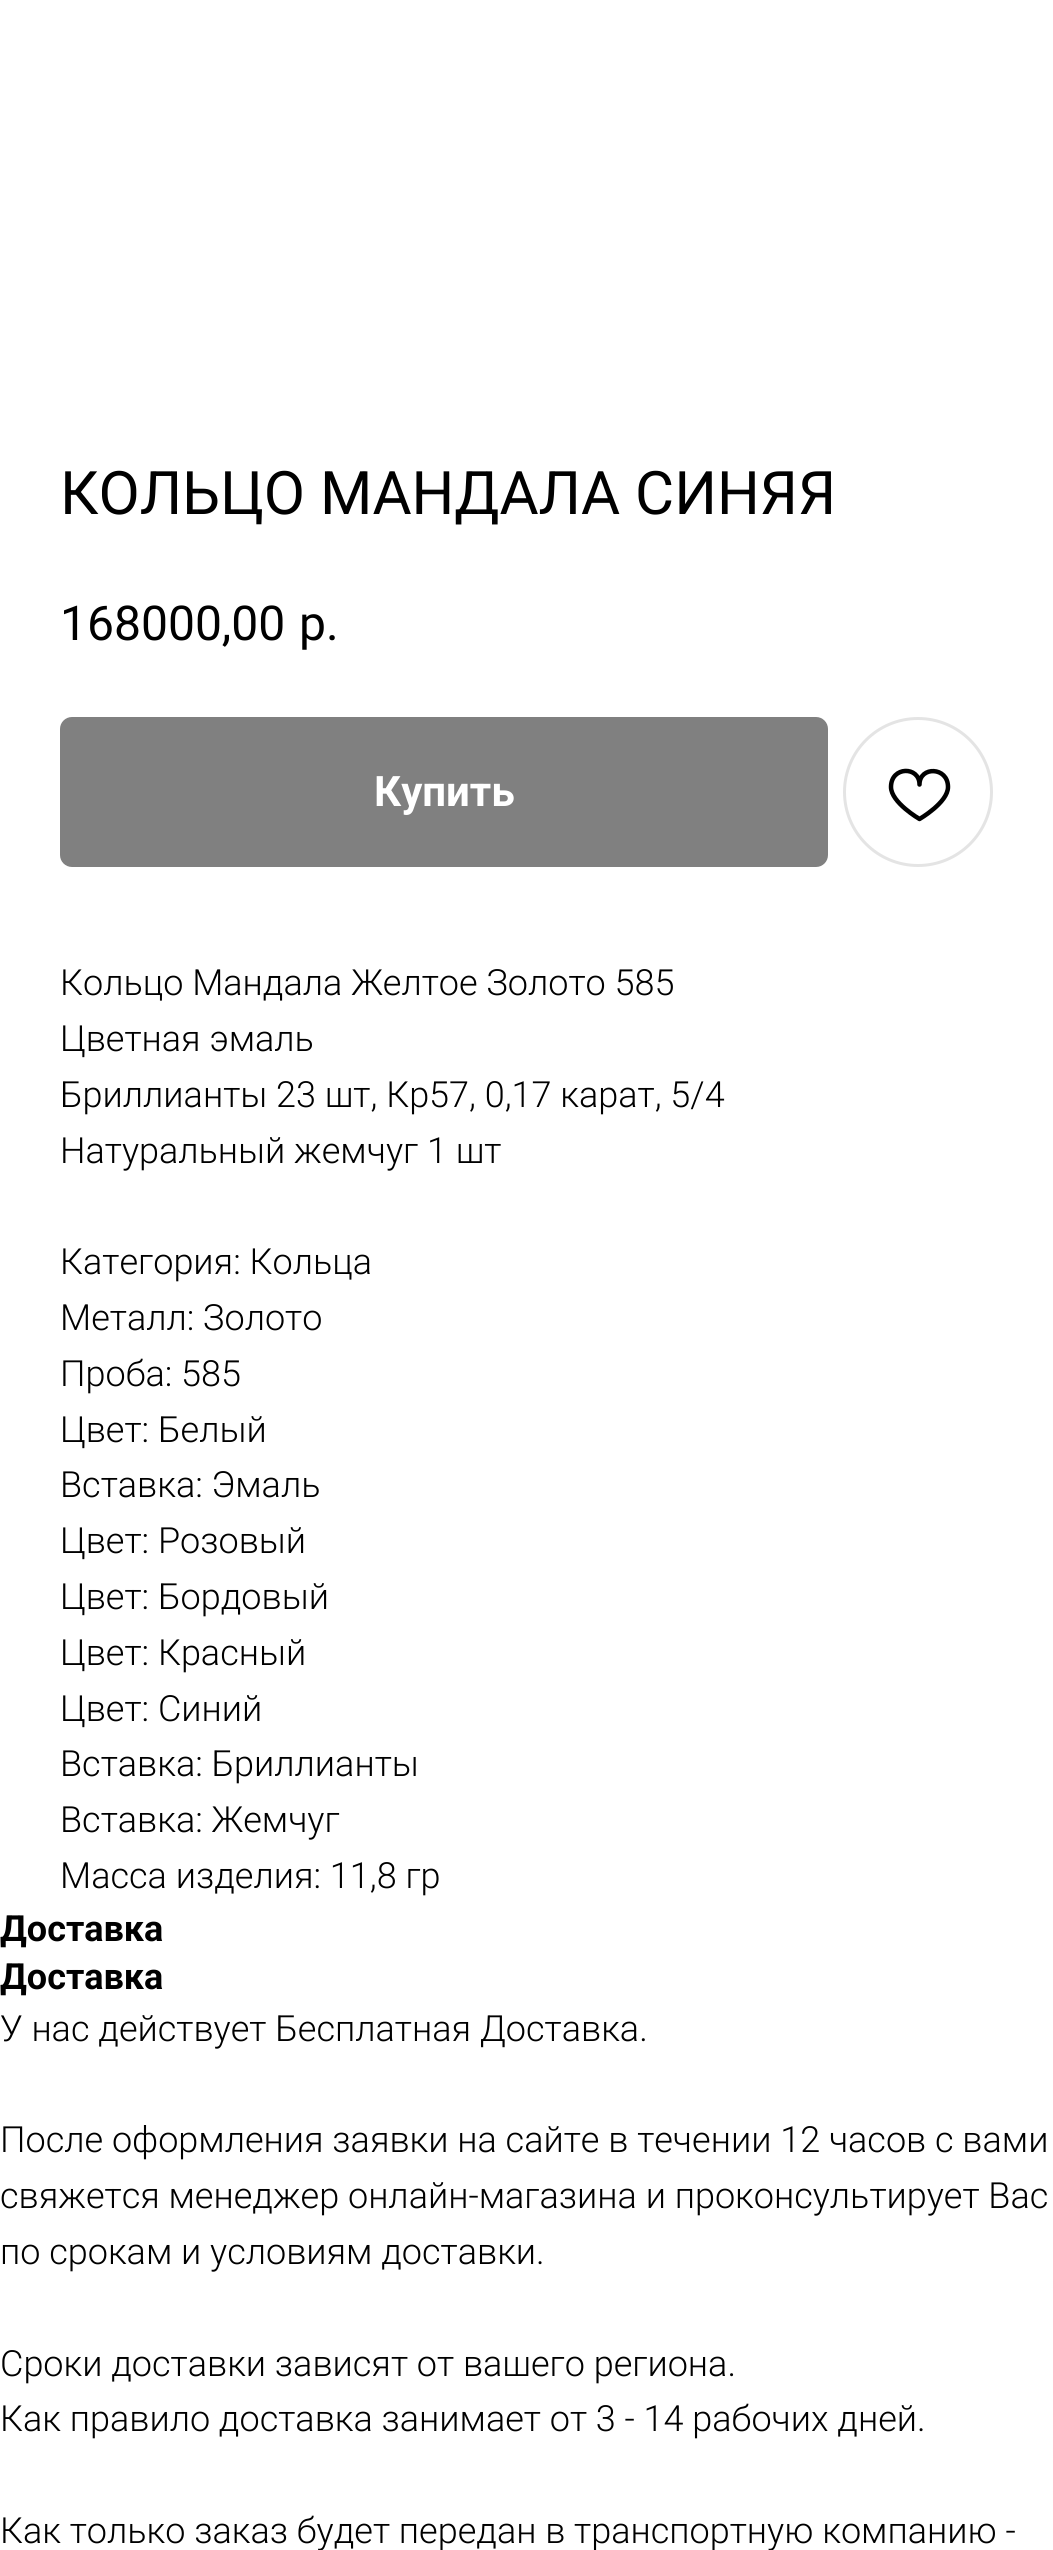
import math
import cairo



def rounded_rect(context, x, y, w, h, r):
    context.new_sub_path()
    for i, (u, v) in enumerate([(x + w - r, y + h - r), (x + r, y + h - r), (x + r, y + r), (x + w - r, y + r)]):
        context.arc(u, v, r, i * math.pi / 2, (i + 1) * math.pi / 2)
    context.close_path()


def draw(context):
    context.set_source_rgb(1, 1, 1)
    context.paint()
    context.set_source_rgb(128 / 255, 128 / 255, 128 / 255)
    rounded_rect(context, 60, 717, 768, 150, 12)
    context.fill()
    context.arc(918, 792, 73.5, 0, 2 * math.pi)
    context.set_source_rgb(228 / 255, 228 / 255, 228 / 255)
    context.set_line_width(3)
    context.stroke()
    context.new_path()
    context.move_to(948, 787)
    context.curve_to(948, 802.5, 919.5, 819, 919.5, 819)
    context.curve_to(919.5, 819, 891, 802.5, 891, 787)
    context.curve_to(891, 766, 919.5, 766, 919.5, 784.5)
    context.curve_to(919.5, 766, 948, 766.5, 948, 787)
    context.close_path()
    context.set_source_rgb(0, 0, 0)
    context.set_line_width(4.5)
    context.set_line_join(cairo.LineJoin.ROUND)
    context.stroke()
    context.select_font_face("Roboto")
    context.set_font_size(60)
    context.move_to(60, 514)
    context.show_text("КОЛЬЦО МАНДАЛА СИНЯЯ")
    context.set_font_size(48)
    context.move_to(60, 640)
    context.show_text("168000,00")
    context.move_to(299, 640)
    context.show_text("р.")
    context.select_font_face("Roboto", cairo.FontSlant.NORMAL, cairo.FontWeight.BOLD)
    context.set_font_size(42)
    context.set_source_rgb(1, 1, 1)
    context.move_to(374, 806)
    context.show_text("Купить")
    context.select_font_face("Roboto Light")
    context.set_font_size(36)
    context.set_source_rgb(0, 0, 0)
    context.move_to(60, 995)
    context.show_text("Кольцо Мандала Желтое Золото 585")
    context.move_to(60, 1051)
    context.show_text("Цветная эмаль")
    context.move_to(60, 1107)
    context.show_text("Бриллианты 23 шт, Кр57, 0,17 карат, 5/4")
    context.move_to(60, 1163)
    context.show_text("Натуральный жемчуг 1 шт")
    context.move_to(60, 1274)
    context.show_text("Категория: Кольца")
    context.move_to(60, 1330)
    context.show_text("Металл: Золото")
    context.move_to(60, 1386)
    context.show_text("Проба: 585")
    context.move_to(60, 1442)
    context.show_text("Цвет: Белый")
    context.move_to(60, 1497)
    context.show_text("Вставка: Эмаль")
    context.move_to(60, 1553)
    context.show_text("Цвет: Розовый")
    context.move_to(60, 1609)
    context.show_text("Цвет: Бордовый")
    context.move_to(60, 1665)
    context.show_text("Цвет: Красный")
    context.move_to(60, 1721)
    context.show_text("Цвет: Синий")
    context.move_to(60, 1776)
    context.show_text("Вставка: Бриллианты")
    context.move_to(60, 1832)
    context.show_text("Вставка: Жемчуг")
    context.move_to(60, 1888)
    context.show_text("Масса изделия: 11,8 гр")
    context.select_font_face("Roboto", cairo.FontSlant.NORMAL, cairo.FontWeight.BOLD)
    context.move_to(0, 1941)
    context.show_text("Доставка")
    context.move_to(0, 1989)
    context.show_text("Доставка")
    context.select_font_face("Roboto Light")
    context.move_to(0, 2041)
    context.show_text("У нас действует Бесплатная Доставка.")
    context.move_to(0, 2152)
    context.show_text("После оформления заявки на сайте в течении 12 часов с вами")
    context.move_to(0, 2208)
    context.show_text("свяжется менеджер онлайн-магазина и проконсультирует Вас")
    context.move_to(0, 2264)
    context.show_text("по срокам и условиям доставки.")
    context.move_to(0, 2376)
    context.show_text("Сроки доставки зависят от вашего региона.")
    context.move_to(0, 2431)
    context.show_text("Как правило доставка занимает от 3 - 14 рабочих дней.")
    context.move_to(0, 2543)
    context.show_text("Как только заказ будет передан в транспортную компанию -")


surface = cairo.ImageSurface(cairo.Format.RGB24, 1053, 2550)
context = cairo.Context(surface)
options = cairo.FontOptions()
options.set_hint_metrics(cairo.HintMetrics.OFF)
options.set_hint_style(cairo.HintStyle.NONE)
context.set_font_options(options)
context.set_miter_limit(4)
draw(context)
surface.write_to_png("out.png")
